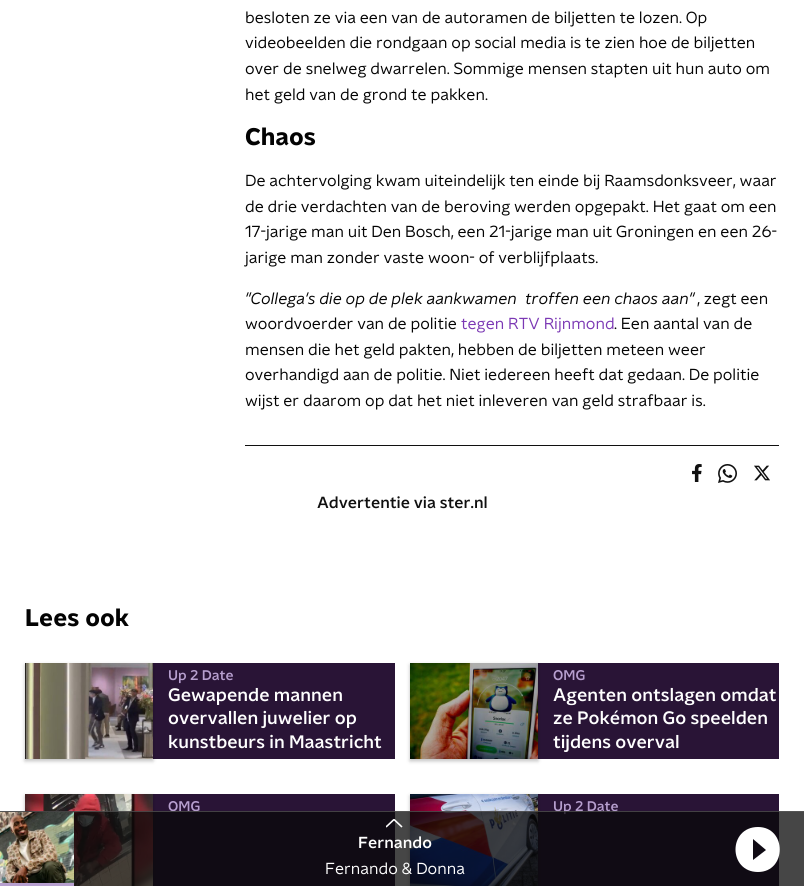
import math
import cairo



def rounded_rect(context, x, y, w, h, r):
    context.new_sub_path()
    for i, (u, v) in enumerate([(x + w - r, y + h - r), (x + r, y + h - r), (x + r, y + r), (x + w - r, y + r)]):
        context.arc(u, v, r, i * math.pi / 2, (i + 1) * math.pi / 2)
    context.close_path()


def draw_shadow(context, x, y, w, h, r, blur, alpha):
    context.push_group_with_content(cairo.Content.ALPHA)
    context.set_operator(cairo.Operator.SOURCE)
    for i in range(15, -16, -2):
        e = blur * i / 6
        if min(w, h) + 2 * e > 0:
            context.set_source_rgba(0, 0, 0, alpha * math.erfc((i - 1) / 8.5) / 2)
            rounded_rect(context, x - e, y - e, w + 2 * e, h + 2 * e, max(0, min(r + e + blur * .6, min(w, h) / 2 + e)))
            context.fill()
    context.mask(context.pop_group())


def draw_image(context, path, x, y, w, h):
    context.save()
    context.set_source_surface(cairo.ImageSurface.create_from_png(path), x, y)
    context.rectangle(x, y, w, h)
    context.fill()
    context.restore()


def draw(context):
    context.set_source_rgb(1, 1, 1)
    context.paint()
    context.set_source_rgb(16 / 255, 16 / 255, 16 / 255)
    context.rectangle(245, 445, 534, 1)
    context.fill()
    draw_image(context, "images/1.png", 692, 464, 10, 18)
    draw_image(context, "images/2.png", 718, 464, 19, 19)
    draw_image(context, "images/3.png", 754, 465, 16, 16)
    context.set_source_rgb(41 / 255, 20 / 255, 54 / 255)
    context.rectangle(153, 663, 242, 96)
    context.fill()
    context.set_source_rgb(0, 0, 0)
    draw_shadow(context, 25, 665, 128, 96, 0, 2, 0.25)
    draw_image(context, "images/4.png", 25, 663, 128, 96)
    context.set_source_rgb(41 / 255, 20 / 255, 54 / 255)
    context.rectangle(538, 663, 241, 96)
    context.fill()
    context.set_source_rgb(0, 0, 0)
    draw_shadow(context, 410, 665, 128, 96, 0, 2, 0.25)
    draw_image(context, "images/5.png", 410, 663, 128, 96)
    context.set_source_rgb(41 / 255, 20 / 255, 54 / 255)
    context.rectangle(153, 794, 242, 92)
    context.fill()
    context.set_source_rgb(0, 0, 0)
    draw_shadow(context, 25, 796, 128, 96, 0, 2, 0.25)
    draw_image(context, "images/6.png", 25, 794, 128, 92)
    context.set_source_rgb(41 / 255, 20 / 255, 54 / 255)
    context.rectangle(538, 794, 241, 92)
    context.fill()
    context.set_source_rgb(0, 0, 0)
    draw_shadow(context, 410, 796, 128, 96, 0, 2, 0.25)
    draw_image(context, "images/7.png", 410, 794, 128, 92)
    context.select_font_face("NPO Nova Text")
    context.set_font_size(16)
    context.set_source_rgb(3 / 255, 3 / 255, 3 / 255)
    context.move_to(245, 23)
    context.show_text("besloten ze via een van de autoramen de biljetten te lozen. Op")
    context.move_to(245, 48)
    context.show_text("videobeelden die rondgaan op social media is te zien hoe de biljetten")
    context.move_to(245, 74)
    context.show_text("over de snelweg dwarrelen. Sommige mensen stapten uit hun auto om")
    context.move_to(245, 100)
    context.show_text("het geld van de grond te pakken.")
    context.select_font_face("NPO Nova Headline", cairo.FontSlant.NORMAL, cairo.FontWeight.BOLD)
    context.set_font_size(24)
    context.move_to(245, 145)
    context.show_text("Chaos")
    context.select_font_face("NPO Nova Text")
    context.set_font_size(16)
    context.move_to(245, 186)
    context.show_text("De achtervolging kwam uiteindelijk ten einde bij Raamsdonksveer, waar")
    context.move_to(245, 212)
    context.show_text("de drie verdachten van de beroving werden opgepakt. Het gaat om een")
    context.move_to(245, 237)
    context.show_text("17-jarige man uit Den Bosch, een 21-jarige man uit Groningen en een 26-")
    context.move_to(245, 263)
    context.show_text("jarige man zonder vaste woon- of verblijfplaats.")
    context.select_font_face("NPO Nova Text", cairo.FontSlant.ITALIC)
    context.move_to(245, 304)
    context.show_text("\"Collega's die op de plek aankwamen")
    context.move_to(525, 304)
    context.show_text("troffen een chaos aan\"")
    context.select_font_face("NPO Nova Text")
    context.move_to(697, 304)
    context.show_text(", zegt een")
    context.move_to(245, 329)
    context.show_text("woordvoerder van de politie")
    context.set_source_rgb(123 / 255, 56 / 255, 180 / 255)
    context.move_to(461, 329)
    context.show_text("tegen RTV Rijnmond")
    context.set_source_rgb(3 / 255, 3 / 255, 3 / 255)
    context.move_to(614, 329)
    context.show_text(". Een aantal van de")
    context.move_to(245, 355)
    context.show_text("mensen die het geld pakten, hebben de biljetten meteen weer")
    context.move_to(245, 380)
    context.show_text("overhandigd aan de politie. Niet iedereen heeft dat gedaan. De politie")
    context.move_to(245, 406)
    context.show_text("wijst er daarom op dat het niet inleveren van geld strafbaar is.")
    context.select_font_face("NPO Nova Text Medium")
    context.set_source_rgb(16 / 255, 16 / 255, 16 / 255)
    context.move_to(317, 508)
    context.show_text("Advertentie via ster.nl")
    context.select_font_face("NPO Nova Headline", cairo.FontSlant.NORMAL, cairo.FontWeight.BOLD)
    context.set_font_size(24)
    context.set_source_rgb(3 / 255, 3 / 255, 3 / 255)
    context.move_to(25, 626)
    context.show_text("Lees ook")
    context.select_font_face("NPO Nova Text Medium")
    context.set_font_size(14)
    context.set_source_rgb(183 / 255, 159 / 255, 207 / 255)
    context.move_to(168, 680)
    context.show_text("Up 2 Date")
    context.set_font_size(18)
    context.set_source_rgb(1, 1, 1)
    context.move_to(168, 701)
    context.show_text("Gewapende mannen")
    context.move_to(168, 724)
    context.show_text("overvallen juwelier op")
    context.move_to(168, 748)
    context.show_text("kunstbeurs in Maastricht")
    context.set_font_size(14)
    context.set_source_rgb(183 / 255, 159 / 255, 207 / 255)
    context.move_to(553, 680)
    context.show_text("OMG")
    context.set_font_size(18)
    context.set_source_rgb(1, 1, 1)
    context.move_to(553, 701)
    context.show_text("Agenten ontslagen omdat")
    context.move_to(553, 724)
    context.show_text("ze Pokémon Go speelden")
    context.move_to(553, 748)
    context.show_text("tijdens overval")
    context.set_font_size(14)
    context.set_source_rgb(183 / 255, 159 / 255, 207 / 255)
    context.move_to(168, 811)
    context.show_text("OMG")
    context.move_to(553, 811)
    context.show_text("Up 2 Date")
    context.set_source_rgba(9 / 255, 9 / 255, 9 / 255, 0.75)
    context.rectangle(0, 811, 804, 75)
    context.fill()
    context.set_source_rgba(95 / 255, 95 / 255, 95 / 255, 0.65)
    context.rectangle(0, 811, 804, 1)
    context.fill()
    draw_image(context, "images/8.png", 0, 812, 74, 71)
    context.set_source_rgb(183 / 255, 159 / 255, 207 / 255)
    context.rectangle(0, 883, 74, 3)
    context.fill()
    context.save()
    context.rectangle(386, 819, 18, 9)
    context.clip()
    context.new_path()
    context.move_to(402, 827)
    context.line_to(394, 819.5)
    context.line_to(386, 827)
    context.set_source_rgb(1, 1, 1)
    context.set_line_width(1.6)
    context.stroke()
    context.restore()
    context.set_font_size(16)
    context.set_source_rgb(1, 1, 1)
    context.move_to(358, 848)
    context.show_text("Fernando")
    context.select_font_face("NPO Nova Text")
    context.move_to(325, 874)
    context.show_text("Fernando & Donna")
    context.new_path()
    context.move_to(758, 827)
    context.curve_to(728, 827, 728, 872, 758, 872)
    context.curve_to(787, 872, 787, 827, 758, 827)
    context.close_path()
    context.move_to(753, 860)
    context.line_to(753, 839)
    context.line_to(766, 850)
    context.close_path()
    context.fill()


surface = cairo.ImageSurface(cairo.Format.RGB24, 804, 886)
context = cairo.Context(surface)
options = cairo.FontOptions()
options.set_hint_metrics(cairo.HintMetrics.OFF)
options.set_hint_style(cairo.HintStyle.NONE)
context.set_font_options(options)
context.set_miter_limit(4)
draw(context)
surface.write_to_png("out.png")
